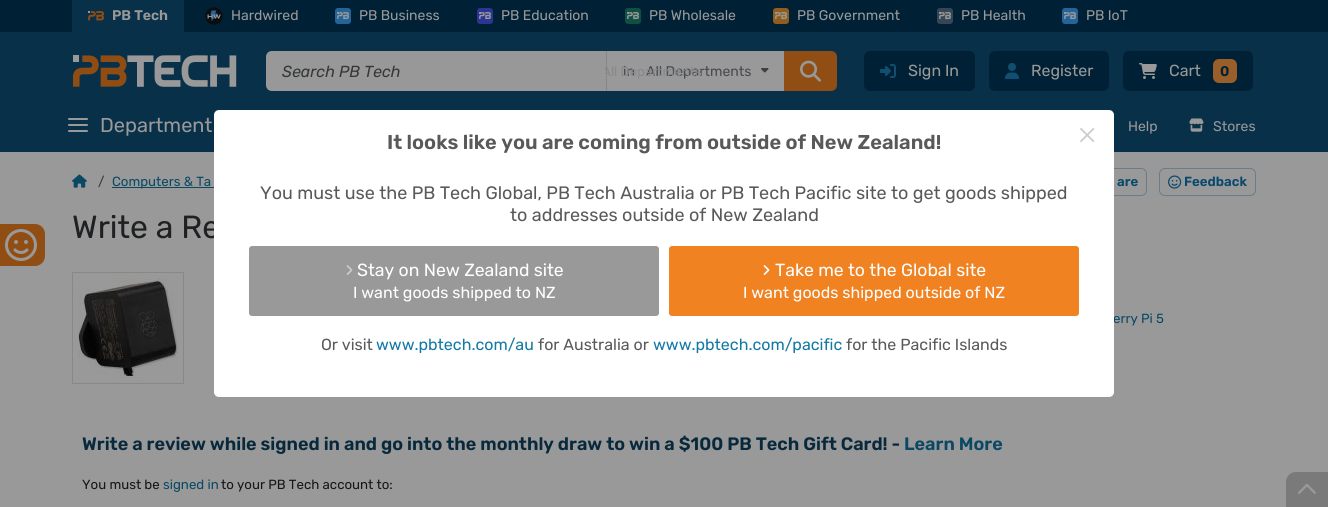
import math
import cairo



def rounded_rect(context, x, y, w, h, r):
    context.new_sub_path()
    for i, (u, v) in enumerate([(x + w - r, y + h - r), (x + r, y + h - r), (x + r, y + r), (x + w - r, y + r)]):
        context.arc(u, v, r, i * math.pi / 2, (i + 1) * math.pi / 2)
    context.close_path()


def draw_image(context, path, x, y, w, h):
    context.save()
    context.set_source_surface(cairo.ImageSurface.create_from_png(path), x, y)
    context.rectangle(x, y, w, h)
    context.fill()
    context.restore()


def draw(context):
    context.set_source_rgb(153 / 255, 153 / 255, 153 / 255)
    context.paint()
    context.set_source_rgb(8 / 255, 48 / 255, 72 / 255)
    context.rectangle(0, 32, 1328, 120)
    context.fill()
    context.set_source_rgb(0, 33 / 255, 53 / 255)
    context.rectangle(0, 0, 1328, 32)
    context.fill()
    context.set_source_rgb(8 / 255, 48 / 255, 72 / 255)
    context.rectangle(72, 0, 112, 32)
    context.fill()
    draw_image(context, "images/1.png", 88, 11, 16, 10)
    draw_image(context, "images/2.png", 205, 7, 18, 18)
    context.set_source_rgb(37 / 255, 100 / 255, 152 / 255)
    rounded_rect(context, 335, 8, 16, 16, 3)
    context.fill()
    draw_image(context, "images/3.png", 337, 12, 12, 8)
    context.set_source_rgb(43 / 255, 53 / 255, 148 / 255)
    rounded_rect(context, 477, 8, 16, 16, 3)
    context.fill()
    draw_image(context, "images/4.png", 479, 12, 12, 8)
    context.set_source_rgb(16 / 255, 80 / 255, 66 / 255)
    rounded_rect(context, 625, 8, 16, 16, 3)
    context.fill()
    draw_image(context, "images/5.png", 627, 12, 12, 8)
    context.set_source_rgb(145 / 255, 92 / 255, 28 / 255)
    rounded_rect(context, 773, 8, 16, 16, 3)
    context.fill()
    draw_image(context, "images/6.png", 775, 12, 12, 8)
    context.set_source_rgb(55 / 255, 70 / 255, 86 / 255)
    rounded_rect(context, 937, 8, 16, 16, 3)
    context.fill()
    draw_image(context, "images/7.png", 939, 12, 12, 8)
    context.set_source_rgb(37 / 255, 100 / 255, 152 / 255)
    rounded_rect(context, 1062, 8, 16, 16, 3)
    context.fill()
    draw_image(context, "images/3.png", 1064, 12, 12, 8)
    draw_image(context, "images/8.png", 72, 55, 165, 32)
    context.set_source_rgb(152 / 255, 152 / 255, 152 / 255)
    context.new_path()
    context.move_to(272, 51)
    context.line_to(606, 51)
    context.line_to(606, 91)
    context.line_to(272, 91)
    context.curve_to(268.5, 91, 266, 88.5, 266, 85)
    context.line_to(266, 57)
    context.curve_to(266, 53.5, 268.5, 51, 272, 51)
    context.close_path()
    context.fill()
    context.set_source_rgb(153 / 255, 153 / 255, 153 / 255)
    context.rectangle(607, 51, 177, 40)
    context.fill()
    context.set_source_rgb(133 / 255, 136 / 255, 138 / 255)
    context.rectangle(606, 51, 1, 40)
    context.fill()
    draw_image(context, "images/9.png", 761, 68, 8, 5)
    context.set_source_rgb(144 / 255, 78 / 255, 20 / 255)
    context.new_path()
    context.move_to(784, 51)
    context.line_to(831, 51)
    context.curve_to(834.5, 51, 837, 53.5, 837, 57)
    context.line_to(837, 85)
    context.curve_to(837, 88.5, 834.5, 91, 831, 91)
    context.line_to(784, 91)
    context.close_path()
    context.fill()
    draw_image(context, "images/10.png", 800, 60, 21, 22)
    context.set_source_rgb(0, 33 / 255, 53 / 255)
    rounded_rect(context, 862.5, 49.5, 114, 43, 7.5)
    context.fill_preserve()
    context.set_source_rgb(8 / 255, 48 / 255, 72 / 255)
    context.set_line_width(3)
    context.stroke()
    draw_image(context, "images/11.png", 880, 64, 16, 14)
    context.set_source_rgb(0, 33 / 255, 53 / 255)
    rounded_rect(context, 987.5, 49.5, 123, 43, 7.5)
    context.fill_preserve()
    context.set_source_rgb(8 / 255, 48 / 255, 72 / 255)
    context.stroke()
    draw_image(context, "images/12.png", 1005, 63, 14, 16)
    context.set_source_rgb(0, 33 / 255, 53 / 255)
    rounded_rect(context, 1121.5, 49.5, 133, 43, 7.5)
    context.fill_preserve()
    context.set_source_rgb(8 / 255, 48 / 255, 72 / 255)
    context.stroke()
    draw_image(context, "images/13.png", 1139, 63, 18, 16)
    context.set_source_rgb(153 / 255, 94 / 255, 41 / 255)
    rounded_rect(context, 1213, 59, 24, 24, 6)
    context.fill()
    context.set_source_rgb(153 / 255, 153 / 255, 153 / 255)
    rounded_rect(context, 68, 118, 20, 2, 1)
    context.fill()
    rounded_rect(context, 68, 124, 20, 2, 1)
    context.fill()
    rounded_rect(context, 68, 130, 20, 2, 1)
    context.fill()
    draw_image(context, "images/14.png", 1189, 118, 15, 14)
    context.set_source_rgb(144 / 255, 78 / 255, 20 / 255)
    rounded_rect(context, -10, 224, 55, 42, 10)
    context.fill()
    draw_image(context, "images/17.png", 5, 229, 32, 32)
    draw_image(context, "images/18.png", 72, 174, 15, 14)
    context.set_source_rgb(11 / 255, 72 / 255, 99 / 255)
    context.rectangle(112, 187, 102, 1)
    context.fill()
    rounded_rect(context, 1075.5, 168.5, 71, 27, 5.5)
    context.set_source_rgb(103 / 255, 125 / 255, 137 / 255)
    context.set_line_width(1)
    context.stroke()
    rounded_rect(context, 1159.5, 168.5, 96, 27, 5.5)
    context.stroke()
    draw_image(context, "images/19.png", 1168, 175, 14, 14)
    context.rectangle(72.5, 272.5, 111, 111)
    context.set_source_rgb(136 / 255, 136 / 255, 133 / 255)
    context.stroke()
    draw_image(context, "images/20.png", 78, 278, 100, 100)
    context.set_source_rgb(122 / 255, 122 / 255, 122 / 255)
    context.new_path()
    context.move_to(1296, 472)
    context.line_to(1328, 472)
    context.line_to(1328, 507)
    context.line_to(1286, 507)
    context.line_to(1286, 482)
    context.curve_to(1286, 476.5, 1290.5, 472, 1296, 472)
    context.close_path()
    context.fill()
    draw_image(context, "images/21.png", 1298, 483, 18, 11)
    context.select_font_face("Rubik SemiBold")
    context.set_font_size(14)
    context.set_source_rgb(153 / 255, 153 / 255, 153 / 255)
    context.move_to(112, 20)
    context.show_text("PB Tech")
    context.select_font_face("Rubik")
    context.move_to(231, 20)
    context.show_text("Hardwired")
    context.move_to(359, 20)
    context.show_text("PB Business")
    context.move_to(501, 20)
    context.show_text("PB Education")
    context.move_to(649, 20)
    context.show_text("PB Wholesale")
    context.move_to(797, 20)
    context.show_text("PB Government")
    context.move_to(961, 20)
    context.show_text("PB Health")
    context.move_to(1086, 20)
    context.show_text("PB IoT")
    context.select_font_face("Rubik", cairo.FontSlant.ITALIC)
    context.set_font_size(16)
    context.set_source_rgb(53 / 255, 55 / 255, 57 / 255)
    context.move_to(282, 77)
    context.show_text("Search PB Tech")
    context.select_font_face("Rubik")
    context.set_font_size(14)
    context.set_source_rgb(71 / 255, 73 / 255, 79 / 255)
    context.move_to(623, 76)
    context.show_text("in")
    context.move_to(646, 76)
    context.show_text("All Departments")
    context.set_font_size(13.25)
    context.set_source_rgb(135 / 255, 136 / 255, 137 / 255)
    context.move_to(602, 76)
    context.show_text("All Departments")
    context.set_source_rgb(153 / 255, 153 / 255, 153 / 255)
    context.rectangle(602, 68, 3, 8)
    context.fill()
    context.set_font_size(16)
    context.move_to(908, 76)
    context.show_text("Sign In")
    context.move_to(1031, 76)
    context.show_text("Register")
    context.move_to(1169, 76)
    context.show_text("Cart")
    context.select_font_face("Rubik SemiBold")
    context.set_font_size(14)
    context.set_source_rgb(0, 33 / 255, 53 / 255)
    context.move_to(1220, 76)
    context.show_text("0")
    context.select_font_face("Rubik")
    context.set_font_size(20)
    context.set_source_rgb(153 / 255, 153 / 255, 153 / 255)
    context.move_to(100, 132)
    context.show_text("Department")
    context.set_font_size(14)
    context.move_to(1128, 131)
    context.show_text("Help")
    context.move_to(1213, 131)
    context.show_text("Stores")
    context.set_font_size(13.25)
    context.set_source_rgb(53 / 255, 55 / 255, 57 / 255)
    context.move_to(98, 186)
    context.show_text("/")
    context.set_source_rgb(11 / 255, 72 / 255, 99 / 255)
    context.move_to(112, 186)
    context.show_text("Computers & Ta")
    context.select_font_face("Rubik SemiBold")
    context.set_source_rgb(8 / 255, 73 / 255, 109 / 255)
    context.move_to(1117, 186)
    context.show_text("are")
    context.move_to(1184, 186)
    context.show_text("Feedback")
    context.select_font_face("Rubik")
    context.set_font_size(32)
    context.set_source_rgb(31 / 255, 32 / 255, 34 / 255)
    context.move_to(72, 238)
    context.show_text("Write a Re")
    context.set_font_size(13.25)
    context.set_source_rgb(11 / 255, 72 / 255, 99 / 255)
    context.move_to(1113, 323)
    context.show_text("erry Pi 5")
    context.set_source_rgb(1, 1, 1)
    rounded_rect(context, 214, 110, 900, 287, 5)
    context.fill()
    context.select_font_face("Liberation Serif")
    context.set_font_size(36)
    context.set_source_rgb(204 / 255, 204 / 255, 204 / 255)
    context.move_to(1077, 147)
    context.show_text("×")
    context.set_source_rgb(240 / 255, 130 / 255, 34 / 255)
    rounded_rect(context, 669, 246, 410, 70, 3)
    context.fill()
    context.select_font_face("Rubik")
    context.set_font_size(16)
    context.set_source_rgb(1, 1, 1)
    context.move_to(743, 298)
    context.show_text("I want goods shipped outside of NZ")
    context.set_font_size(17.6)
    context.move_to(775, 276)
    context.show_text("Take me to the Global site")
    draw_image(context, "images/16.png", 763, 265, 7, 10)
    context.set_source_rgb(153 / 255, 153 / 255, 153 / 255)
    rounded_rect(context, 249, 246, 410, 70, 3)
    context.fill()
    context.set_font_size(16)
    context.set_source_rgb(1, 1, 1)
    context.move_to(353, 298)
    context.show_text("I want goods shipped to NZ")
    context.set_font_size(17.6)
    context.move_to(357, 276)
    context.show_text("Stay on New Zealand site")
    draw_image(context, "images/15.png", 346, 265, 7, 10)
    context.set_font_size(16)
    context.set_source_rgb(89 / 255, 89 / 255, 89 / 255)
    context.move_to(846, 350)
    context.show_text("for the Pacific Islands")
    context.set_source_rgb(18 / 255, 120 / 255, 165 / 255)
    context.move_to(653, 350)
    context.show_text("www.pbtech.com/pacific")
    context.set_source_rgb(89 / 255, 89 / 255, 89 / 255)
    context.move_to(538, 350)
    context.show_text("for Australia or")
    context.set_source_rgb(18 / 255, 120 / 255, 165 / 255)
    context.move_to(376, 350)
    context.show_text("www.pbtech.com/au")
    context.set_source_rgb(89 / 255, 89 / 255, 89 / 255)
    context.move_to(321, 350)
    context.show_text("Or visit")
    context.set_font_size(18)
    context.move_to(510, 221)
    context.show_text("to addresses outside of New Zealand")
    context.move_to(260, 199)
    context.show_text("You must use the PB Tech Global, PB Tech Australia or PB Tech Pacific site to get goods shipped")
    context.select_font_face("Rubik SemiBold")
    context.set_font_size(20)
    context.move_to(387, 149)
    context.show_text("It looks like you are coming from outside of New Zealand!")
    context.set_font_size(18)
    context.set_source_rgb(8 / 255, 40 / 255, 60 / 255)
    context.move_to(82, 450)
    context.show_text("Write a review while signed in and go into the monthly draw to win a $100 PB Tech Gift Card! -")
    context.set_source_rgb(11 / 255, 72 / 255, 99 / 255)
    context.move_to(904, 450)
    context.show_text("Learn More")
    context.select_font_face("Rubik")
    context.set_font_size(13.25)
    context.set_source_rgb(20 / 255, 22 / 255, 25 / 255)
    context.move_to(82, 489)
    context.show_text("You must be")
    context.set_source_rgb(11 / 255, 72 / 255, 99 / 255)
    context.move_to(163, 489)
    context.show_text("signed in")
    context.set_source_rgb(20 / 255, 22 / 255, 25 / 255)
    context.move_to(221, 489)
    context.show_text("to your PB Tech account to:")


surface = cairo.ImageSurface(cairo.Format.RGB24, 1328, 507)
context = cairo.Context(surface)
options = cairo.FontOptions()
options.set_hint_metrics(cairo.HintMetrics.OFF)
options.set_hint_style(cairo.HintStyle.NONE)
context.set_font_options(options)
context.set_miter_limit(4)
draw(context)
surface.write_to_png("out.png")
